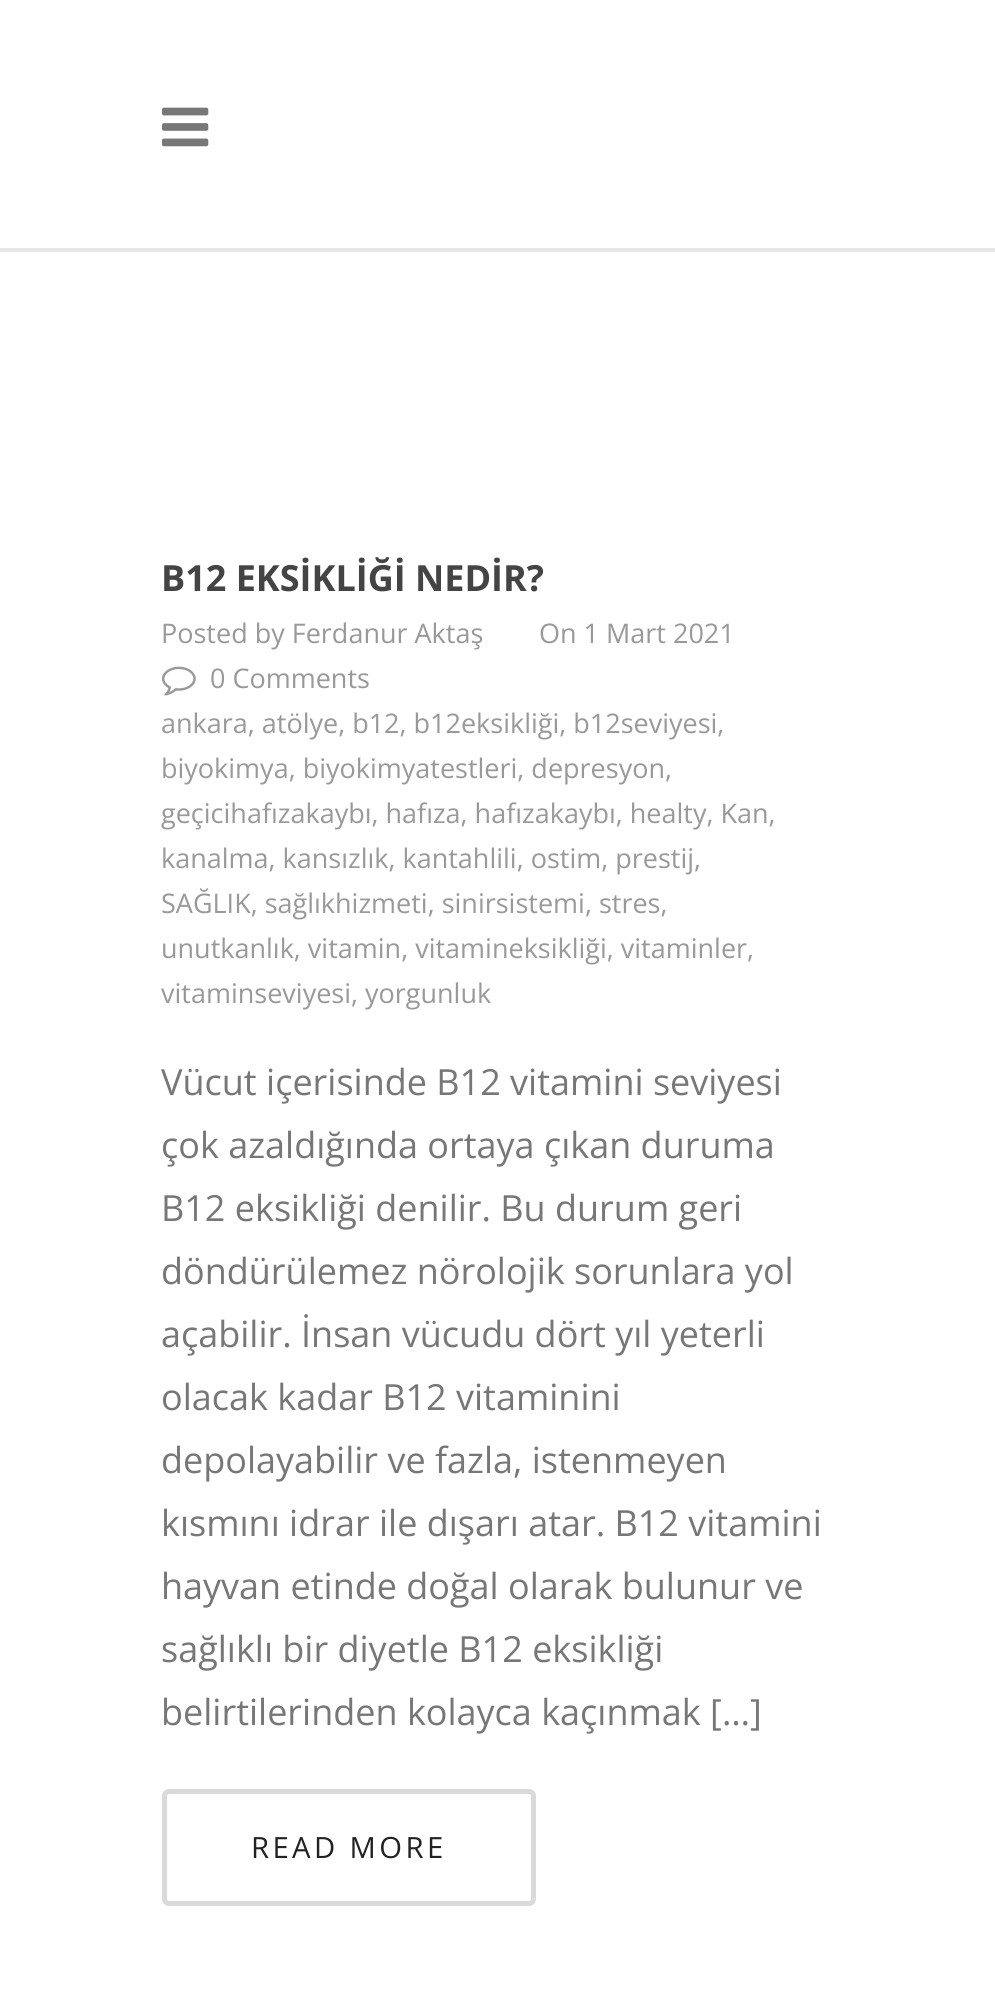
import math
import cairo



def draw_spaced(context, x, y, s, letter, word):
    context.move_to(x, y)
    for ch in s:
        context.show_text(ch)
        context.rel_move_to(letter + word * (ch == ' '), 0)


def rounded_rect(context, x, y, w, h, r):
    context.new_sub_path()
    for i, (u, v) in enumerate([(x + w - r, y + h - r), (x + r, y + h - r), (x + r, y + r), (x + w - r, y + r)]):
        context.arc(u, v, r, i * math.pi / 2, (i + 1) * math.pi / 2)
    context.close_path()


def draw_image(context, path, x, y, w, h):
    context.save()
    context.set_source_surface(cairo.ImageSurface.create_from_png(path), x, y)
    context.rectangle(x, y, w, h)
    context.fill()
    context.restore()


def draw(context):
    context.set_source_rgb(1, 1, 1)
    context.paint()
    draw_image(context, "images/1.png", 162, 107, 47, 40)
    context.set_source_rgb(231 / 255, 231 / 255, 231 / 255)
    context.rectangle(0, 248, 995, 4)
    context.fill()
    draw_image(context, "images/2.png", 162, 666, 34, 30)
    rounded_rect(context, 164.5, 1791.5, 369, 112, 4.5)
    context.set_source_rgb(218 / 255, 218 / 255, 218 / 255)
    context.set_line_width(5)
    context.stroke()
    context.select_font_face("Open Sans", cairo.FontSlant.NORMAL, cairo.FontWeight.BOLD)
    context.set_font_size(36)
    context.set_source_rgb(68 / 255, 68 / 255, 68 / 255)
    context.move_to(161, 591)
    context.show_text("B12 EKSİKLİĞİ NEDİR?")
    context.select_font_face("Open Sans")
    context.set_font_size(27)
    context.set_source_rgb(153 / 255, 153 / 255, 153 / 255)
    context.move_to(161, 643)
    context.show_text("Posted by Ferdanur Aktaş")
    context.move_to(539, 643)
    context.show_text("On 1 Mart 2021")
    context.move_to(210, 688)
    context.show_text("0 Comments")
    context.move_to(161, 733)
    context.show_text("ankara, atölye, b12, b12eksikliği, b12seviyesi,")
    context.move_to(161, 778)
    context.show_text("biyokimya, biyokimyatestleri, depresyon,")
    context.move_to(161, 823)
    context.show_text("geçicihafızakaybı, hafıza, hafızakaybı, healty, Kan,")
    context.move_to(161, 868)
    context.show_text("kanalma, kansızlık, kantahlili, ostim, prestij,")
    context.move_to(161, 913)
    context.show_text("SAĞLIK, sağlıkhizmeti, sinirsistemi, stres,")
    context.move_to(161, 958)
    context.show_text("unutkanlık, vitamin, vitamineksikliği, vitaminler,")
    context.move_to(161, 1003)
    context.show_text("vitaminseviyesi, yorgunluk")
    context.set_font_size(36)
    context.set_source_rgb(119 / 255, 119 / 255, 119 / 255)
    context.move_to(161, 1095)
    context.show_text("Vücut içerisinde B12 vitamini seviyesi")
    context.move_to(161, 1158)
    context.show_text("çok azaldığında ortaya çıkan duruma")
    context.move_to(161, 1221)
    context.show_text("B12 eksikliği denilir. Bu durum geri")
    context.move_to(161, 1284)
    context.show_text("döndürülemez nörolojik sorunlara yol")
    context.move_to(161, 1347)
    context.show_text("açabilir. İnsan vücudu dört yıl yeterli")
    context.move_to(161, 1410)
    context.show_text("olacak kadar B12 vitaminini")
    context.move_to(161, 1473)
    context.show_text("depolayabilir ve fazla, istenmeyen")
    context.move_to(161, 1536)
    context.show_text("kısmını idrar ile dışarı atar. B12 vitamini")
    context.move_to(161, 1599)
    context.show_text("hayvan etinde doğal olarak bulunur ve")
    context.move_to(161, 1662)
    context.show_text("sağlıklı bir diyetle B12 eksikliği")
    context.move_to(161, 1725)
    context.show_text("belirtilerinden kolayca kaçınmak […]")
    context.set_font_size(29.25)
    context.set_source_rgb(34 / 255, 34 / 255, 34 / 255)
    draw_spaced(context, 251, 1858, "READ MORE", 3.4, 0)


surface = cairo.ImageSurface(cairo.Format.RGB24, 995, 1998)
context = cairo.Context(surface)
options = cairo.FontOptions()
options.set_hint_metrics(cairo.HintMetrics.OFF)
options.set_hint_style(cairo.HintStyle.NONE)
context.set_font_options(options)
context.set_miter_limit(4)
draw(context)
surface.write_to_png("out.png")
